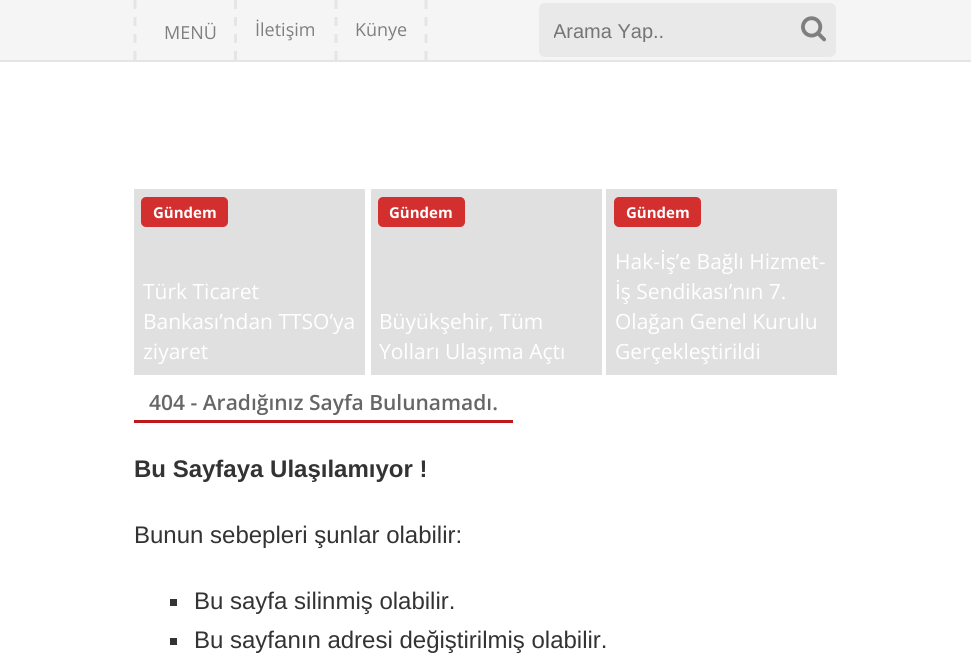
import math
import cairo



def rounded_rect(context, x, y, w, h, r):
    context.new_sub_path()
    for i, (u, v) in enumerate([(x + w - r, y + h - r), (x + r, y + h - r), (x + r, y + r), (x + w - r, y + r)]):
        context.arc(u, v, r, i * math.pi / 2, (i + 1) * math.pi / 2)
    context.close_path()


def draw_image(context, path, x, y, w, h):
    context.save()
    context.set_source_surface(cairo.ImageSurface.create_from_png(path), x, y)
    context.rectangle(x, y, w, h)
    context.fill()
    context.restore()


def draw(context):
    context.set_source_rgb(1, 1, 1)
    context.paint()
    context.set_source_rgb(245 / 255, 245 / 255, 245 / 255)
    context.rectangle(0, 0, 971, 60)
    context.fill()
    context.set_source_rgb(229 / 255, 229 / 255, 229 / 255)
    context.rectangle(0, 60, 971, 2)
    context.fill()
    context.new_path()
    context.move_to(235.5, 0)
    context.line_to(235.5, 60)
    context.set_line_width(3)
    context.set_dash([9, 8])
    context.stroke()
    context.new_path()
    context.move_to(135, 0)
    context.line_to(135, 60)
    context.stroke()
    context.new_path()
    context.move_to(336, 0)
    context.line_to(336, 60)
    context.stroke()
    context.new_path()
    context.move_to(426, 0)
    context.line_to(426, 60)
    context.stroke()
    context.set_source_rgb(233 / 255, 233 / 255, 233 / 255)
    rounded_rect(context, 539, 3, 297, 54, 6)
    context.fill()
    draw_image(context, "images/1.png", 801, 16, 25, 26)
    context.set_source_rgb(224 / 255, 224 / 255, 224 / 255)
    context.rectangle(134, 189, 231, 186)
    context.fill()
    context.set_source_rgb(211 / 255, 47 / 255, 47 / 255)
    rounded_rect(context, 141, 197, 87, 30, 5)
    context.fill()
    context.set_source_rgb(224 / 255, 224 / 255, 224 / 255)
    context.rectangle(371, 189, 231, 186)
    context.fill()
    context.set_source_rgb(211 / 255, 47 / 255, 47 / 255)
    rounded_rect(context, 378, 197, 87, 30, 5)
    context.fill()
    context.set_source_rgb(224 / 255, 224 / 255, 224 / 255)
    context.rectangle(606, 189, 231, 186)
    context.fill()
    context.set_source_rgb(211 / 255, 47 / 255, 47 / 255)
    rounded_rect(context, 614, 197, 87, 30, 5)
    context.fill()
    context.set_source_rgb(189 / 255, 25 / 255, 24 / 255)
    context.rectangle(134, 420, 379, 3)
    context.fill()
    context.set_source_rgb(51 / 255, 51 / 255, 51 / 255)
    context.rectangle(170, 599, 7, 7)
    context.fill()
    context.rectangle(170, 638, 7, 7)
    context.fill()
    context.select_font_face("Open Sans")
    context.set_font_size(18)
    context.set_source_rgb(127 / 255, 127 / 255, 127 / 255)
    context.move_to(164, 39)
    context.show_text("MENÜ")
    context.move_to(255, 36)
    context.show_text("İletişim")
    context.move_to(355, 36)
    context.show_text("Künye")
    context.save()
    context.rectangle(554, 20, 199, 22)
    context.clip()
    context.select_font_face("Liberation Sans")
    context.set_font_size(20)
    context.set_source_rgb(117 / 255, 117 / 255, 117 / 255)
    context.move_to(553, 38)
    context.show_text("Arama Yap..")
    context.restore()
    context.select_font_face("Open Sans", cairo.FontSlant.NORMAL, cairo.FontWeight.BOLD)
    context.set_font_size(15)
    context.set_source_rgb(1, 1, 1)
    context.move_to(153, 218)
    context.show_text("Gündem")
    context.select_font_face("Open Sans")
    context.set_font_size(21)
    context.move_to(143, 299)
    context.show_text("Türk Ticaret")
    context.move_to(143, 329)
    context.show_text("Bankası’ndan TTSO’ya")
    context.move_to(143, 359)
    context.show_text("ziyaret")
    context.select_font_face("Open Sans", cairo.FontSlant.NORMAL, cairo.FontWeight.BOLD)
    context.set_font_size(15)
    context.move_to(389, 218)
    context.show_text("Gündem")
    context.select_font_face("Open Sans")
    context.set_font_size(21)
    context.move_to(379, 329)
    context.show_text("Büyükşehir, Tüm")
    context.move_to(379, 359)
    context.show_text("Yolları Ulaşıma Açtı")
    context.select_font_face("Open Sans", cairo.FontSlant.NORMAL, cairo.FontWeight.BOLD)
    context.set_font_size(15)
    context.move_to(626, 218)
    context.show_text("Gündem")
    context.select_font_face("Open Sans")
    context.set_font_size(21)
    context.move_to(615, 269)
    context.show_text("Hak-İş’e Bağlı Hizmet-")
    context.move_to(615, 299)
    context.show_text("İş Sendikası’nın 7.")
    context.move_to(615, 329)
    context.show_text("Olağan Genel Kurulu")
    context.move_to(615, 359)
    context.show_text("Gerçekleştirildi")
    context.select_font_face("Open Sans SemiBold")
    context.set_source_rgb(102 / 255, 102 / 255, 102 / 255)
    context.move_to(149, 410)
    context.show_text("404 - Aradığınız Sayfa Bulunamadı.")
    context.select_font_face("Liberation Sans", cairo.FontSlant.NORMAL, cairo.FontWeight.BOLD)
    context.set_font_size(24)
    context.set_source_rgb(51 / 255, 51 / 255, 51 / 255)
    context.move_to(134, 477)
    context.show_text("Bu Sayfaya Ulaşılamıyor !")
    context.select_font_face("Liberation Sans")
    context.move_to(134, 543)
    context.show_text("Bunun sebepleri şunlar olabilir:")
    context.move_to(194, 609)
    context.show_text("Bu sayfa silinmiş olabilir.")
    context.move_to(194, 648)
    context.show_text("Bu sayfanın adresi değiştirilmiş olabilir.")


surface = cairo.ImageSurface(cairo.Format.RGB24, 971, 663)
context = cairo.Context(surface)
options = cairo.FontOptions()
options.set_hint_metrics(cairo.HintMetrics.OFF)
options.set_hint_style(cairo.HintStyle.NONE)
context.set_font_options(options)
context.set_miter_limit(4)
draw(context)
surface.write_to_png("out.png")
